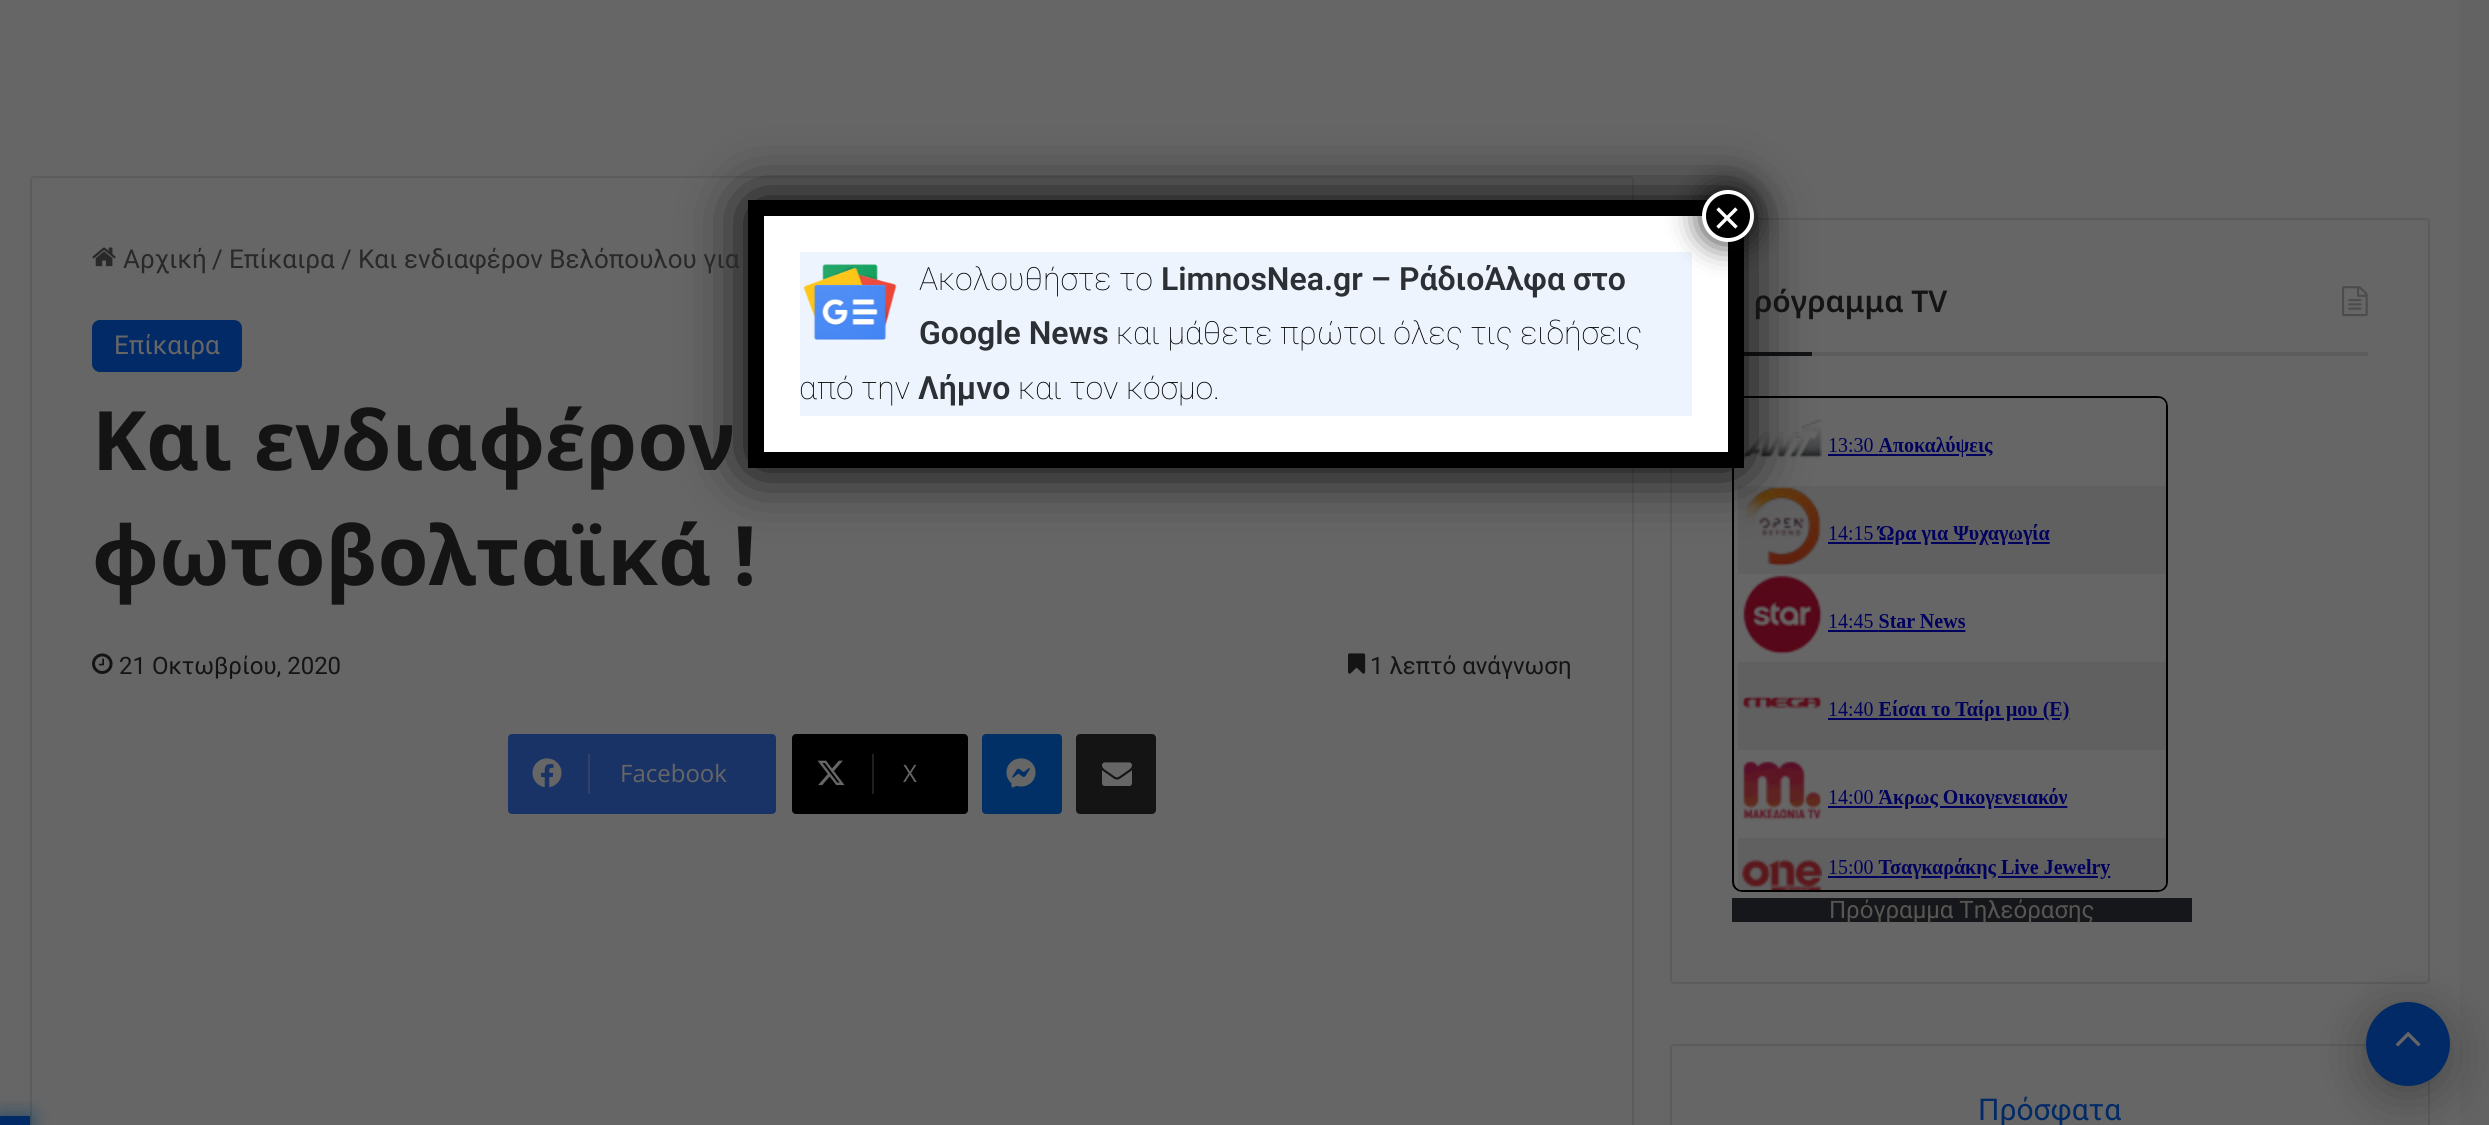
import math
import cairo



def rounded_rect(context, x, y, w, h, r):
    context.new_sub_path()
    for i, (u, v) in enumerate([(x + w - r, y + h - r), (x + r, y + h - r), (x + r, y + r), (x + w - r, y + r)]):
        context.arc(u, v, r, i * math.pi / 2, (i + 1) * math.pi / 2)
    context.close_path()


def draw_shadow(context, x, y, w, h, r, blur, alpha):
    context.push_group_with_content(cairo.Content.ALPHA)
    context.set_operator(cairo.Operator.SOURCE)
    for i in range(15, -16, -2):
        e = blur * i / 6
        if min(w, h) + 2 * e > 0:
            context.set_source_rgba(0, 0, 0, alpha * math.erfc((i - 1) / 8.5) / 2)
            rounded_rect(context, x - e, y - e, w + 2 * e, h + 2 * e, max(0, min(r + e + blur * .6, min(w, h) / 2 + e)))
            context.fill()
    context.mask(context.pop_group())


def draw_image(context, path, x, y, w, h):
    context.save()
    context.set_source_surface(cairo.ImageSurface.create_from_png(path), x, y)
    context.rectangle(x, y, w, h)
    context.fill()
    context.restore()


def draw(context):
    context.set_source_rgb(99 / 255, 99 / 255, 99 / 255)
    context.paint()
    context.set_source_rgb(102 / 255, 102 / 255, 102 / 255)
    context.rectangle(0, 0, 2460, 1125)
    context.fill()
    rounded_rect(context, 31, 177, 1602, 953, 3)
    context.set_source_rgb(92 / 255, 92 / 255, 92 / 255)
    context.stroke()
    rounded_rect(context, 1671, 219, 758, 764, 3)
    context.stroke()
    context.rectangle(1812, 352, 556, 4)
    context.fill()
    context.set_source_rgb(18 / 255, 19 / 255, 21 / 255)
    context.rectangle(1744, 352, 68, 4)
    context.fill()
    draw_image(context, "images/10.png", 1732, 396, 436, 496)
    context.set_source_rgb(2 / 255, 2 / 255, 2 / 255)
    draw_shadow(context, 748, 200, 996, 268, 6, 30, 1)
    context.set_source_rgb(1, 1, 1)
    context.rectangle(764, 216, 964, 236)
    context.fill()
    context.new_path()
    context.move_to(756, 208)
    context.line_to(1736, 208)
    context.line_to(1736, 460)
    context.line_to(756, 460)
    context.close_path()
    context.set_source_rgb(0, 0, 0)
    context.set_line_width(16)
    context.stroke()
    context.set_source_rgb(237 / 255, 244 / 255, 254 / 255)
    context.rectangle(800, 252, 892, 164)
    context.fill()
    context.set_source_rgb(2 / 255, 2 / 255, 2 / 255)
    draw_shadow(context, 1700, 188, 56, 56, 28, 15, 0.75)
    context.set_source_rgb(0, 0, 0)
    context.arc(1728, 216, 24, 0, 2 * math.pi)
    context.fill_preserve()
    context.set_source_rgb(1, 1, 1)
    context.set_line_width(4)
    context.stroke()
    draw_image(context, "images/1.png", 803, 264, 94, 76)
    context.set_source_rgb(0, 54 / 255, 102 / 255)
    draw_shadow(context, 0, 1116, 30, 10, 0, 10, 0.7)
    context.set_source_rgb(2 / 255, 42 / 255, 102 / 255)
    context.rectangle(0, 1116, 30, 9)
    context.fill()
    draw_image(context, "images/2.png", 92, 247, 24, 20)
    rounded_rect(context, 92, 320, 150, 52, 8)
    context.fill()
    draw_image(context, "images/3.png", 92, 653, 21, 21)
    draw_image(context, "images/4.png", 1348, 653, 18, 21)
    context.set_source_rgb(26 / 255, 51 / 255, 102 / 255)
    rounded_rect(context, 508, 734, 268, 80, 4)
    context.fill()
    draw_image(context, "images/5.png", 532, 758, 30, 30)
    context.set_source_rgb(48 / 255, 66 / 255, 102 / 255)
    context.rectangle(588, 754, 2, 40)
    context.fill()
    context.set_source_rgb(0, 0, 0)
    rounded_rect(context, 792, 734, 176, 80, 4)
    context.fill()
    draw_image(context, "images/6.png", 817, 760, 28, 26)
    context.set_source_rgb(31 / 255, 31 / 255, 31 / 255)
    context.rectangle(872, 754, 2, 40)
    context.fill()
    context.set_source_rgb(0, 48 / 255, 102 / 255)
    rounded_rect(context, 982, 734, 80, 80, 4)
    context.fill()
    draw_image(context, "images/7.png", 1006, 758, 30, 30)
    context.set_source_rgb(20 / 255, 20 / 255, 20 / 255)
    rounded_rect(context, 1076, 734, 80, 80, 4)
    context.fill()
    draw_image(context, "images/8.png", 1102, 762, 30, 24)
    draw_image(context, "images/9.png", 2342, 286, 26, 31)
    context.set_source_rgb(22 / 255, 23 / 255, 26 / 255)
    context.rectangle(1732, 898, 460, 24)
    context.fill()
    rounded_rect(context, 1671, 1045, 758, 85, 3)
    context.set_source_rgb(92 / 255, 92 / 255, 92 / 255)
    context.set_line_width(2)
    context.stroke()
    context.set_source_rgb(0, 0, 0)
    draw_shadow(context, 2366, 1012, 84, 84, 42, 25, 0.3)
    context.set_source_rgb(2 / 255, 42 / 255, 102 / 255)
    context.arc(2408, 1044, 42, 0, 2 * math.pi)
    context.fill()
    draw_image(context, "images/11.png", 2395, 1032, 26, 15)
    context.select_font_face("Liberation Sans")
    context.set_font_size(48)
    context.set_source_rgb(1, 1, 1)
    context.move_to(1713, 234)
    context.show_text("×")
    context.select_font_face("Roboto Thin")
    context.set_font_size(32)
    context.set_source_rgb(0, 0, 0)
    context.move_to(919, 290)
    context.show_text("Ακολουθήστε το")
    context.select_font_face("Roboto SemiBold")
    context.set_source_rgb(44 / 255, 47 / 255, 52 / 255)
    context.move_to(1161, 290)
    context.show_text("LimnosNea.gr – ΡάδιοΆλφα στο")
    context.move_to(919, 344)
    context.show_text("Google News")
    context.select_font_face("Roboto Thin")
    context.set_source_rgb(0, 0, 0)
    context.move_to(1116, 344)
    context.show_text("και μάθετε πρώτοι όλες τις ειδήσεις")
    context.move_to(799, 399)
    context.show_text("από την")
    context.select_font_face("Roboto SemiBold")
    context.set_source_rgb(44 / 255, 47 / 255, 52 / 255)
    context.move_to(918, 399)
    context.show_text("Λήμνο")
    context.select_font_face("Roboto Thin")
    context.set_source_rgb(0, 0, 0)
    context.move_to(1018, 399)
    context.show_text("και τον κόσμο.")
    context.select_font_face("Roboto")
    context.set_font_size(26)
    context.set_source_rgb(41 / 255, 41 / 255, 41 / 255)
    context.move_to(123, 268)
    context.show_text("Αρχική")
    context.move_to(212, 268)
    context.show_text("/")
    context.move_to(229, 268)
    context.show_text("Επίκαιρα")
    context.move_to(341, 268)
    context.show_text("/")
    context.move_to(358, 268)
    context.show_text("Και ενδιαφέρον Βελόπουλου για")
    context.set_source_rgb(102 / 255, 102 / 255, 102 / 255)
    context.move_to(114, 354)
    context.show_text("Επίκαιρα")
    context.select_font_face("Noto Sans", cairo.FontSlant.NORMAL, cairo.FontWeight.BOLD)
    context.set_font_size(82)
    context.set_source_rgb(20 / 255, 20 / 255, 20 / 255)
    context.move_to(92, 470)
    context.show_text("Και ενδιαφέρον")
    context.move_to(92, 585)
    context.show_text("φωτοβολταϊκά !")
    context.select_font_face("Roboto")
    context.set_font_size(24)
    context.move_to(119, 674)
    context.show_text("21 Οκτωβρίου, 2020")
    context.move_to(1370, 674)
    context.show_text("1 λεπτό ανάγνωση")
    context.select_font_face("Open Sans")
    context.set_source_rgb(102 / 255, 102 / 255, 102 / 255)
    context.move_to(620, 782)
    context.show_text("Facebook")
    context.move_to(903, 782)
    context.show_text("X")
    context.select_font_face("Noto Sans SemiBold")
    context.set_font_size(30)
    context.set_source_rgb(20 / 255, 20 / 255, 20 / 255)
    context.move_to(1754, 312)
    context.show_text("ρόγραμμα TV")
    context.select_font_face("Roboto")
    context.set_font_size(24)
    context.set_source_rgb(87 / 255, 86 / 255, 82 / 255)
    context.move_to(1829, 918)
    context.show_text("Πρόγραμμα Τηλεόρασης")
    context.set_font_size(30)
    context.set_source_rgb(2 / 255, 42 / 255, 102 / 255)
    context.move_to(1978, 1120)
    context.show_text("Πρόσφατα")


surface = cairo.ImageSurface(cairo.Format.RGB24, 2489, 1125)
context = cairo.Context(surface)
options = cairo.FontOptions()
options.set_hint_metrics(cairo.HintMetrics.OFF)
options.set_hint_style(cairo.HintStyle.NONE)
context.set_font_options(options)
context.set_miter_limit(4)
draw(context)
surface.write_to_png("out.png")
